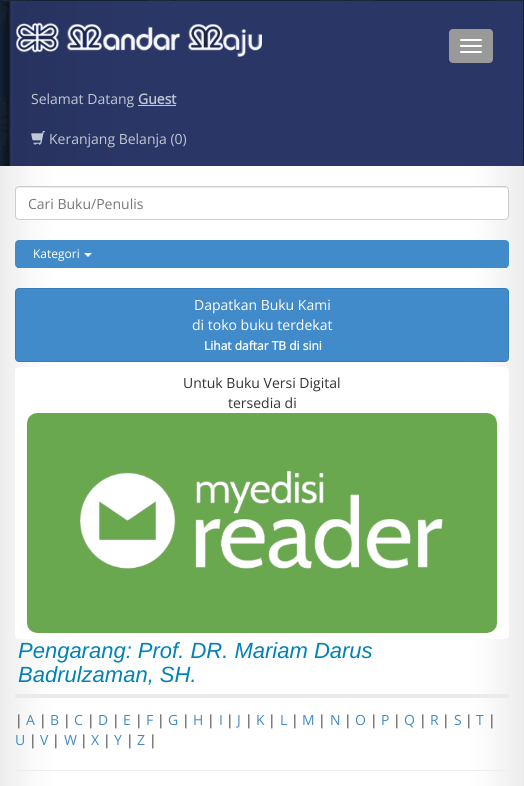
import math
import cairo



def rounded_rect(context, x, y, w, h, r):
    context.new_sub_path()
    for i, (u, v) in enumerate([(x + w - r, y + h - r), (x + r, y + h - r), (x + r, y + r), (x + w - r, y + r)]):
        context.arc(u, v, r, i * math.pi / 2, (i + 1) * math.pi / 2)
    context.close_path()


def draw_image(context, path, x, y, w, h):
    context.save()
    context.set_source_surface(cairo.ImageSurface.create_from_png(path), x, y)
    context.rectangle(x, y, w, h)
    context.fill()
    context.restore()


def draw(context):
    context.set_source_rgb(1, 1, 1)
    context.paint()
    draw_image(context, "images/1.png", 0, 0, 524, 166)
    draw_image(context, "images/2.png", 2, 1, 521, 165)
    draw_image(context, "images/3.png", 16, 22, 246, 35)
    context.set_source_rgb(153 / 255, 153 / 255, 153 / 255)
    rounded_rect(context, 449, 29, 44, 34, 4)
    context.fill()
    context.set_source_rgb(1, 1, 1)
    rounded_rect(context, 460, 39, 22, 2, 1)
    context.fill()
    rounded_rect(context, 460, 45, 22, 2, 1)
    context.fill()
    rounded_rect(context, 460, 51, 22, 2, 1)
    context.fill()
    context.set_source_rgb(193 / 255, 201 / 255, 212 / 255)
    context.rectangle(138, 105, 38, 1)
    context.fill()
    draw_image(context, "images/4.png", 31, 131, 14, 14)
    draw_image(context, "images/5.png", 0, 166, 524, 620)
    context.set_source_rgb(1, 1, 1)
    rounded_rect(context, 15, 186, 494, 34, 4)
    context.fill()
    context.set_source_rgb(236 / 255, 236 / 255, 236 / 255)
    context.new_path()
    context.move_to(19, 188)
    context.line_to(505, 188)
    context.curve_to(507, 188, 508, 189, 508, 191)
    context.line_to(508, 190)
    context.curve_to(508, 188, 507, 187, 505, 187)
    context.line_to(19, 187)
    context.curve_to(17, 187, 16, 188, 16, 190)
    context.line_to(16, 191)
    context.curve_to(16, 189, 17, 188, 19, 188)
    context.close_path()
    context.fill()
    rounded_rect(context, 15.5, 186.5, 493, 33, 3.5)
    context.set_source_rgb(204 / 255, 204 / 255, 204 / 255)
    context.set_line_width(1)
    context.stroke()
    context.set_source_rgb(66 / 255, 139 / 255, 202 / 255)
    rounded_rect(context, 15, 240, 494, 28, 4)
    context.fill()
    context.rectangle(17, 267, 490, 1)
    context.fill()
    context.set_source_rgb(1, 1, 1)
    context.new_path()
    context.move_to(84, 253)
    context.line_to(92, 253)
    context.line_to(88, 257)
    context.close_path()
    context.fill()
    context.set_source_rgb(66 / 255, 139 / 255, 202 / 255)
    rounded_rect(context, 15.5, 288.5, 493, 73, 3.5)
    context.fill_preserve()
    context.set_source_rgb(53 / 255, 126 / 255, 189 / 255)
    context.stroke()
    context.set_source_rgb(1, 1, 1)
    rounded_rect(context, 15, 367, 494, 272, 4)
    context.fill()
    draw_image(context, "images/6.png", 27, 413, 470, 220)
    context.set_source_rgb(234 / 255, 234 / 255, 234 / 255)
    context.rectangle(15, 694, 494, 4)
    context.fill()
    context.set_source_rgb(238 / 255, 238 / 255, 238 / 255)
    context.rectangle(15, 770, 494, 1)
    context.fill()
    context.select_font_face("Open Sans")
    context.set_font_size(14)
    context.set_source_rgb(193 / 255, 201 / 255, 212 / 255)
    context.move_to(31, 104)
    context.show_text("Selamat Datang")
    context.select_font_face("Open Sans", cairo.FontSlant.NORMAL, cairo.FontWeight.BOLD)
    context.move_to(138, 104)
    context.show_text("Guest")
    context.select_font_face("Open Sans")
    context.move_to(49, 144)
    context.show_text("Keranjang Belanja (0)")
    context.set_source_rgb(119 / 255, 119 / 255, 119 / 255)
    context.move_to(28, 209)
    context.show_text("Cari Buku/Penulis")
    context.set_font_size(12)
    context.set_source_rgb(1, 1, 1)
    context.move_to(33, 258)
    context.show_text("Kategori")
    context.set_font_size(14)
    context.move_to(194, 310)
    context.show_text("Dapatkan Buku Kami")
    context.move_to(192, 330)
    context.show_text("di toko buku terdekat")
    context.select_font_face("Open Sans", cairo.FontSlant.NORMAL, cairo.FontWeight.BOLD)
    context.set_font_size(12)
    context.move_to(204, 350)
    context.show_text("Lihat daftar TB di sini")
    context.select_font_face("Open Sans")
    context.set_font_size(14)
    context.set_source_rgb(51 / 255, 51 / 255, 51 / 255)
    context.move_to(183, 388)
    context.show_text("Untuk Buku Versi Digital")
    context.move_to(228, 408)
    context.show_text("tersedia di")
    context.select_font_face("Liberation Sans", cairo.FontSlant.ITALIC)
    context.set_font_size(22)
    context.set_source_rgb(1 / 255, 130 / 255, 181 / 255)
    context.move_to(18, 658)
    context.show_text("Pengarang: Prof. DR. Mariam Darus")
    context.move_to(18, 682)
    context.show_text("Badrulzaman, SH.")
    context.select_font_face("Open Sans")
    context.set_font_size(14)
    context.set_source_rgb(51 / 255, 51 / 255, 51 / 255)
    context.move_to(15, 725)
    context.show_text("|")
    context.set_source_rgb(66 / 255, 139 / 255, 202 / 255)
    context.move_to(26, 725)
    context.show_text("A")
    context.set_source_rgb(51 / 255, 51 / 255, 51 / 255)
    context.move_to(39, 725)
    context.show_text("|")
    context.set_source_rgb(66 / 255, 139 / 255, 202 / 255)
    context.move_to(50, 725)
    context.show_text("B")
    context.set_source_rgb(51 / 255, 51 / 255, 51 / 255)
    context.move_to(63, 725)
    context.show_text("|")
    context.set_source_rgb(66 / 255, 139 / 255, 202 / 255)
    context.move_to(74, 725)
    context.show_text("C")
    context.set_source_rgb(51 / 255, 51 / 255, 51 / 255)
    context.move_to(87, 725)
    context.show_text("|")
    context.set_source_rgb(66 / 255, 139 / 255, 202 / 255)
    context.move_to(98, 725)
    context.show_text("D")
    context.set_source_rgb(51 / 255, 51 / 255, 51 / 255)
    context.move_to(112, 725)
    context.show_text("|")
    context.set_source_rgb(66 / 255, 139 / 255, 202 / 255)
    context.move_to(123, 725)
    context.show_text("E")
    context.set_source_rgb(51 / 255, 51 / 255, 51 / 255)
    context.move_to(135, 725)
    context.show_text("|")
    context.set_source_rgb(66 / 255, 139 / 255, 202 / 255)
    context.move_to(146, 725)
    context.show_text("F")
    context.set_source_rgb(51 / 255, 51 / 255, 51 / 255)
    context.move_to(157, 725)
    context.show_text("|")
    context.set_source_rgb(66 / 255, 139 / 255, 202 / 255)
    context.move_to(168, 725)
    context.show_text("G")
    context.set_source_rgb(51 / 255, 51 / 255, 51 / 255)
    context.move_to(182, 725)
    context.show_text("|")
    context.set_source_rgb(66 / 255, 139 / 255, 202 / 255)
    context.move_to(193, 725)
    context.show_text("H")
    context.set_source_rgb(51 / 255, 51 / 255, 51 / 255)
    context.move_to(207, 725)
    context.show_text("|")
    context.set_source_rgb(66 / 255, 139 / 255, 202 / 255)
    context.move_to(219, 725)
    context.show_text("I")
    context.set_source_rgb(51 / 255, 51 / 255, 51 / 255)
    context.move_to(226, 725)
    context.show_text("|")
    context.set_source_rgb(66 / 255, 139 / 255, 202 / 255)
    context.move_to(237, 725)
    context.show_text("J")
    context.set_source_rgb(51 / 255, 51 / 255, 51 / 255)
    context.move_to(245, 725)
    context.show_text("|")
    context.set_source_rgb(66 / 255, 139 / 255, 202 / 255)
    context.move_to(256, 725)
    context.show_text("K")
    context.set_source_rgb(51 / 255, 51 / 255, 51 / 255)
    context.move_to(268, 725)
    context.show_text("|")
    context.set_source_rgb(66 / 255, 139 / 255, 202 / 255)
    context.move_to(280, 725)
    context.show_text("L")
    context.set_source_rgb(51 / 255, 51 / 255, 51 / 255)
    context.move_to(291, 725)
    context.show_text("|")
    context.set_source_rgb(66 / 255, 139 / 255, 202 / 255)
    context.move_to(302, 725)
    context.show_text("M")
    context.set_source_rgb(51 / 255, 51 / 255, 51 / 255)
    context.move_to(318, 725)
    context.show_text("|")
    context.set_source_rgb(66 / 255, 139 / 255, 202 / 255)
    context.move_to(330, 725)
    context.show_text("N")
    context.set_source_rgb(51 / 255, 51 / 255, 51 / 255)
    context.move_to(344, 725)
    context.show_text("|")
    context.set_source_rgb(66 / 255, 139 / 255, 202 / 255)
    context.move_to(355, 725)
    context.show_text("O")
    context.set_source_rgb(51 / 255, 51 / 255, 51 / 255)
    context.move_to(370, 725)
    context.show_text("|")
    context.set_source_rgb(66 / 255, 139 / 255, 202 / 255)
    context.move_to(381, 725)
    context.show_text("P")
    context.set_source_rgb(51 / 255, 51 / 255, 51 / 255)
    context.move_to(393, 725)
    context.show_text("|")
    context.set_source_rgb(66 / 255, 139 / 255, 202 / 255)
    context.move_to(404, 725)
    context.show_text("Q")
    context.set_source_rgb(51 / 255, 51 / 255, 51 / 255)
    context.move_to(419, 725)
    context.show_text("|")
    context.set_source_rgb(66 / 255, 139 / 255, 202 / 255)
    context.move_to(430, 725)
    context.show_text("R")
    context.set_source_rgb(51 / 255, 51 / 255, 51 / 255)
    context.move_to(442, 725)
    context.show_text("|")
    context.set_source_rgb(66 / 255, 139 / 255, 202 / 255)
    context.move_to(454, 725)
    context.show_text("S")
    context.set_source_rgb(51 / 255, 51 / 255, 51 / 255)
    context.move_to(465, 725)
    context.show_text("|")
    context.set_source_rgb(66 / 255, 139 / 255, 202 / 255)
    context.move_to(476, 725)
    context.show_text("T")
    context.set_source_rgb(51 / 255, 51 / 255, 51 / 255)
    context.move_to(488, 725)
    context.show_text("|")
    context.set_source_rgb(66 / 255, 139 / 255, 202 / 255)
    context.move_to(15, 745)
    context.show_text("U")
    context.set_source_rgb(51 / 255, 51 / 255, 51 / 255)
    context.move_to(29, 745)
    context.show_text("|")
    context.set_source_rgb(66 / 255, 139 / 255, 202 / 255)
    context.move_to(40, 745)
    context.show_text("V")
    context.set_source_rgb(51 / 255, 51 / 255, 51 / 255)
    context.move_to(52, 745)
    context.show_text("|")
    context.set_source_rgb(66 / 255, 139 / 255, 202 / 255)
    context.move_to(64, 745)
    context.show_text("W")
    context.set_source_rgb(51 / 255, 51 / 255, 51 / 255)
    context.move_to(80, 745)
    context.show_text("|")
    context.set_source_rgb(66 / 255, 139 / 255, 202 / 255)
    context.move_to(91, 745)
    context.show_text("X")
    context.set_source_rgb(51 / 255, 51 / 255, 51 / 255)
    context.move_to(103, 745)
    context.show_text("|")
    context.set_source_rgb(66 / 255, 139 / 255, 202 / 255)
    context.move_to(114, 745)
    context.show_text("Y")
    context.set_source_rgb(51 / 255, 51 / 255, 51 / 255)
    context.move_to(126, 745)
    context.show_text("|")
    context.set_source_rgb(66 / 255, 139 / 255, 202 / 255)
    context.move_to(137, 745)
    context.show_text("Z")
    context.set_source_rgb(51 / 255, 51 / 255, 51 / 255)
    context.move_to(149, 745)
    context.show_text("|")


surface = cairo.ImageSurface(cairo.Format.RGB24, 524, 786)
context = cairo.Context(surface)
options = cairo.FontOptions()
options.set_hint_metrics(cairo.HintMetrics.OFF)
options.set_hint_style(cairo.HintStyle.NONE)
context.set_font_options(options)
context.set_miter_limit(4)
draw(context)
surface.write_to_png("out.png")
